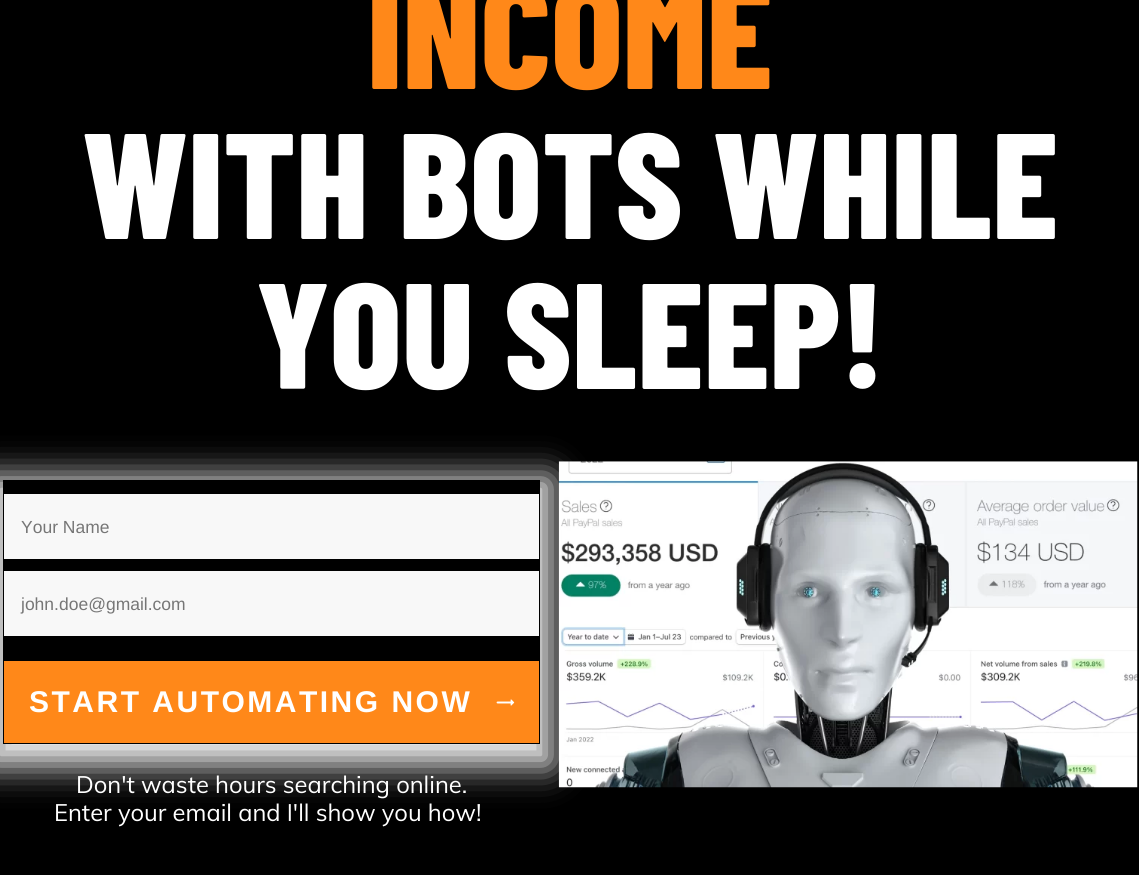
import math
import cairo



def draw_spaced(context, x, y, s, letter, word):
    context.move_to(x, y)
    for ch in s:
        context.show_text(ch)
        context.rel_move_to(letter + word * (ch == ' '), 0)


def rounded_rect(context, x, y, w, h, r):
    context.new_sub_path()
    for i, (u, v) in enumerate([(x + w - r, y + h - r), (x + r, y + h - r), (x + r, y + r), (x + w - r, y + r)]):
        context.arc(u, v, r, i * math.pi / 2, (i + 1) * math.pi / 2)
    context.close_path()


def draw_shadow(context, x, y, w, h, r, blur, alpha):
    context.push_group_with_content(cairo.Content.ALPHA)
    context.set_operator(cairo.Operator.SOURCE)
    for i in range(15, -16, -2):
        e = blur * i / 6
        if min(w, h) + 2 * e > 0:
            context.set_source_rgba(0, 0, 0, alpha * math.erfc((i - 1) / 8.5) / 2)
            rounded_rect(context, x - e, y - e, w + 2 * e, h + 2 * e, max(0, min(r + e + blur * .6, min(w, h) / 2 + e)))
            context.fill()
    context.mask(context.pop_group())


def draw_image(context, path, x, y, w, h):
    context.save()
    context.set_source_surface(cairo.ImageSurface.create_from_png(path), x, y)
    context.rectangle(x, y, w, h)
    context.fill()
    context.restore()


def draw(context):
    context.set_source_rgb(0, 0, 0)
    context.paint()
    context.save()
    context.set_fill_rule(cairo.FillRule.EVEN_ODD)
    context.new_path()
    context.move_to(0, 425)
    context.line_to(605, 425)
    context.line_to(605, 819)
    context.line_to(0, 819)
    context.close_path()
    context.move_to(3, 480)
    context.line_to(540, 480)
    context.line_to(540, 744)
    context.line_to(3, 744)
    context.close_path()
    context.clip()
    context.set_source_rgb(1, 1, 1)
    draw_shadow(context, -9, 479, 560, 286, 0, 17.5, 1)
    context.restore()
    context.set_source_rgb(248 / 255, 248 / 255, 248 / 255)
    context.rectangle(4, 494, 535, 65)
    context.fill()
    context.rectangle(4, 571, 535, 65)
    context.fill()
    context.set_source_rgb(1, 136 / 255, 25 / 255)
    context.rectangle(4, 661, 535, 82)
    context.fill()
    draw_image(context, "images/1.png", 496, 699, 19, 7)
    draw_image(context, "images/2.png", 558, 461, 580, 327)
    context.select_font_face("Barlow Condensed ExtraBold")
    context.set_font_size(150)
    context.move_to(367, 89)
    context.show_text("INCOME")
    context.set_source_rgb(1, 1, 1)
    context.move_to(82, 239)
    context.show_text("WITH BOTS WHILE")
    context.move_to(256, 389)
    context.show_text("YOU SLEEP!")
    context.select_font_face("Liberation Sans")
    context.set_font_size(17.5)
    context.set_source_rgb(118 / 255, 118 / 255, 118 / 255)
    context.move_to(21, 533)
    context.show_text("Your Name")
    context.move_to(21, 610)
    context.show_text("john.doe@gmail.com")
    context.select_font_face("Liberation Sans", cairo.FontSlant.NORMAL, cairo.FontWeight.BOLD)
    context.set_font_size(30)
    context.set_source_rgb(1, 1, 1)
    draw_spaced(context, 29, 712, "START AUTOMATING NOW", 2.5, 0)
    context.select_font_face("Muli")
    context.set_font_size(23.75)
    context.move_to(76, 793)
    context.show_text("Don't waste hours searching online.")
    context.move_to(54, 821)
    context.show_text("Enter your email and I'll show you how!")


surface = cairo.ImageSurface(cairo.Format.RGB24, 1139, 875)
context = cairo.Context(surface)
options = cairo.FontOptions()
options.set_hint_metrics(cairo.HintMetrics.OFF)
options.set_hint_style(cairo.HintStyle.NONE)
context.set_font_options(options)
context.set_miter_limit(4)
draw(context)
surface.write_to_png("out.png")
